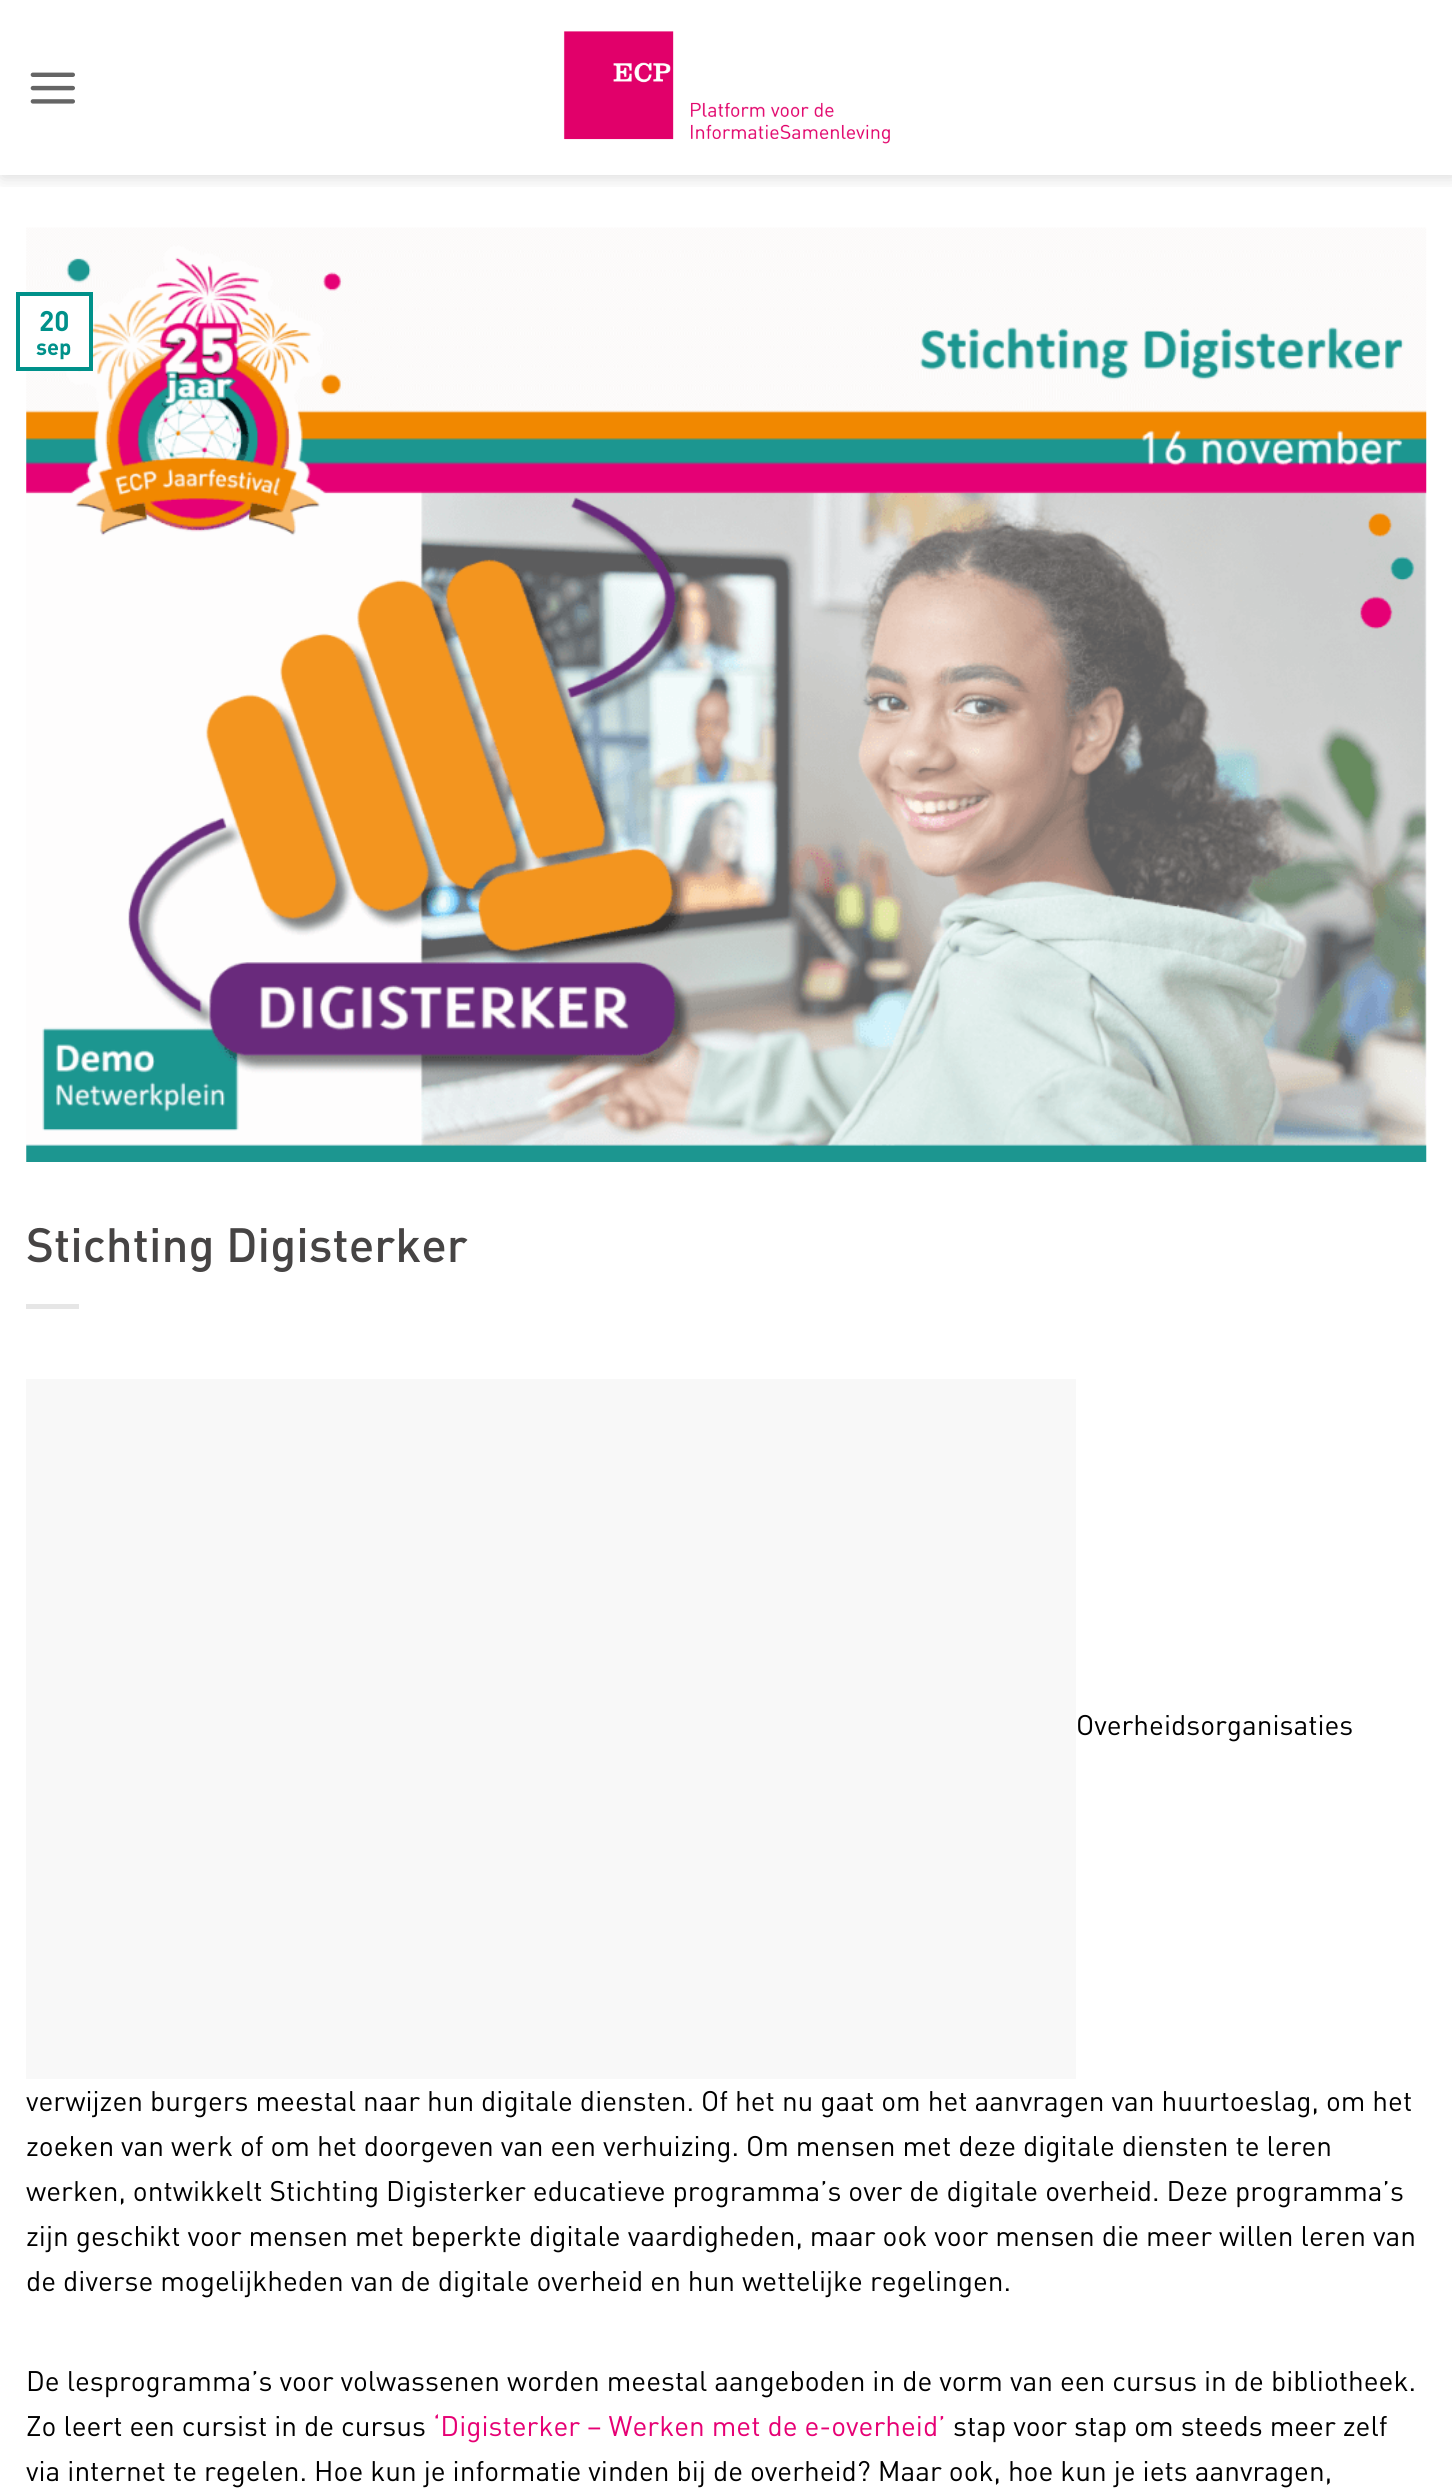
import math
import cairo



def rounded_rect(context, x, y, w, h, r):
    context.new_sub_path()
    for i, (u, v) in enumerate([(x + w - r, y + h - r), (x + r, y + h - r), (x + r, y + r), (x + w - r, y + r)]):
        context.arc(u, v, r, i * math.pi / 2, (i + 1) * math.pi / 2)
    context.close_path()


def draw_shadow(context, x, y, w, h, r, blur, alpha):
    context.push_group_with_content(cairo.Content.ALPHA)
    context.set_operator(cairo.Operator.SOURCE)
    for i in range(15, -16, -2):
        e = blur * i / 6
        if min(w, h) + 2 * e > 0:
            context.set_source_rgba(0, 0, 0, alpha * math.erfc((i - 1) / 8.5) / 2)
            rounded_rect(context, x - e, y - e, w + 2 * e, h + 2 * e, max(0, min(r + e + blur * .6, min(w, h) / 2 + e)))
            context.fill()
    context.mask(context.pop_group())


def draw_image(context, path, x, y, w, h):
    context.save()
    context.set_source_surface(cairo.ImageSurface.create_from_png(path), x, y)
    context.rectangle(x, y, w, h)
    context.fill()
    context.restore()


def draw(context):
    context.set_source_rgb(1, 1, 1)
    context.paint()
    context.save()
    context.rectangle(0, 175, 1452, 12)
    context.clip()
    context.set_source_rgb(0, 0, 0)
    draw_shadow(context, 2, 2, 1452, 175, 0, 9, 0.15)
    context.restore()
    draw_image(context, "images/1.png", 30, 72, 45, 32)
    draw_image(context, "images/2.png", 563, 31, 327, 113)
    draw_image(context, "images/3.png", 26, 227, 1401, 935)
    context.set_source_rgb(1, 1, 1)
    context.rectangle(26, 296, 63, 71)
    context.fill()
    context.rectangle(18, 294, 73, 75)
    context.set_source_rgb(0, 145 / 255, 138 / 255)
    context.set_line_width(4)
    context.stroke()
    context.set_source_rgb(230 / 255, 230 / 255, 230 / 255)
    context.rectangle(26, 1304, 53, 5)
    context.fill()
    context.set_source_rgb(248 / 255, 248 / 255, 248 / 255)
    context.rectangle(26, 1379, 1050, 700)
    context.fill()
    context.select_font_face("DIN", cairo.FontSlant.NORMAL, cairo.FontWeight.BOLD)
    context.set_font_size(28)
    context.set_source_rgb(0, 145 / 255, 138 / 255)
    context.move_to(39, 331)
    context.show_text("20")
    context.set_font_size(22)
    context.move_to(36, 355)
    context.show_text("sep")
    context.select_font_face("DIN Medium")
    context.set_font_size(47.5)
    context.set_source_rgb(70 / 255, 68 / 255, 68 / 255)
    context.move_to(26, 1262)
    context.show_text("Stichting Digisterker")
    context.select_font_face("DIN")
    context.set_font_size(28)
    context.set_source_rgb(0, 0, 0)
    context.move_to(1076, 1735)
    context.show_text("Overheidsorganisaties")
    context.move_to(26, 2111)
    context.show_text("verwijzen burgers meestal naar hun digitale diensten. Of het nu gaat om het aanvragen van huurtoeslag, om het")
    context.move_to(26, 2156)
    context.show_text("zoeken van werk of om het doorgeven van een verhuizing. Om mensen met deze digitale diensten te leren")
    context.move_to(26, 2201)
    context.show_text("werken, ontwikkelt Stichting Digisterker educatieve programma’s over de digitale overheid. Deze programma’s")
    context.move_to(26, 2246)
    context.show_text("zijn geschikt voor mensen met beperkte digitale vaardigheden, maar ook voor mensen die meer willen leren van")
    context.move_to(26, 2291)
    context.show_text("de diverse mogelijkheden van de digitale overheid en hun wettelijke regelingen.")
    context.move_to(26, 2391)
    context.show_text("De lesprogramma’s voor volwassenen worden meestal aangeboden in de vorm van een cursus in de bibliotheek.")
    context.move_to(26, 2436)
    context.show_text("Zo leert een cursist in de cursus")
    context.set_source_rgb(230 / 255, 0, 116 / 255)
    context.move_to(433, 2436)
    context.show_text("‘Digisterker – Werken met de e-overheid’")
    context.set_source_rgb(0, 0, 0)
    context.move_to(953, 2436)
    context.show_text("stap voor stap om steeds meer zelf")
    context.move_to(26, 2481)
    context.show_text("via internet te regelen. Hoe kun je informatie vinden bij de overheid? Maar ook, hoe kun je iets aanvragen,")


surface = cairo.ImageSurface(cairo.Format.RGB24, 1452, 2488)
context = cairo.Context(surface)
options = cairo.FontOptions()
options.set_hint_metrics(cairo.HintMetrics.OFF)
options.set_hint_style(cairo.HintStyle.NONE)
context.set_font_options(options)
context.set_miter_limit(4)
draw(context)
surface.write_to_png("out.png")
